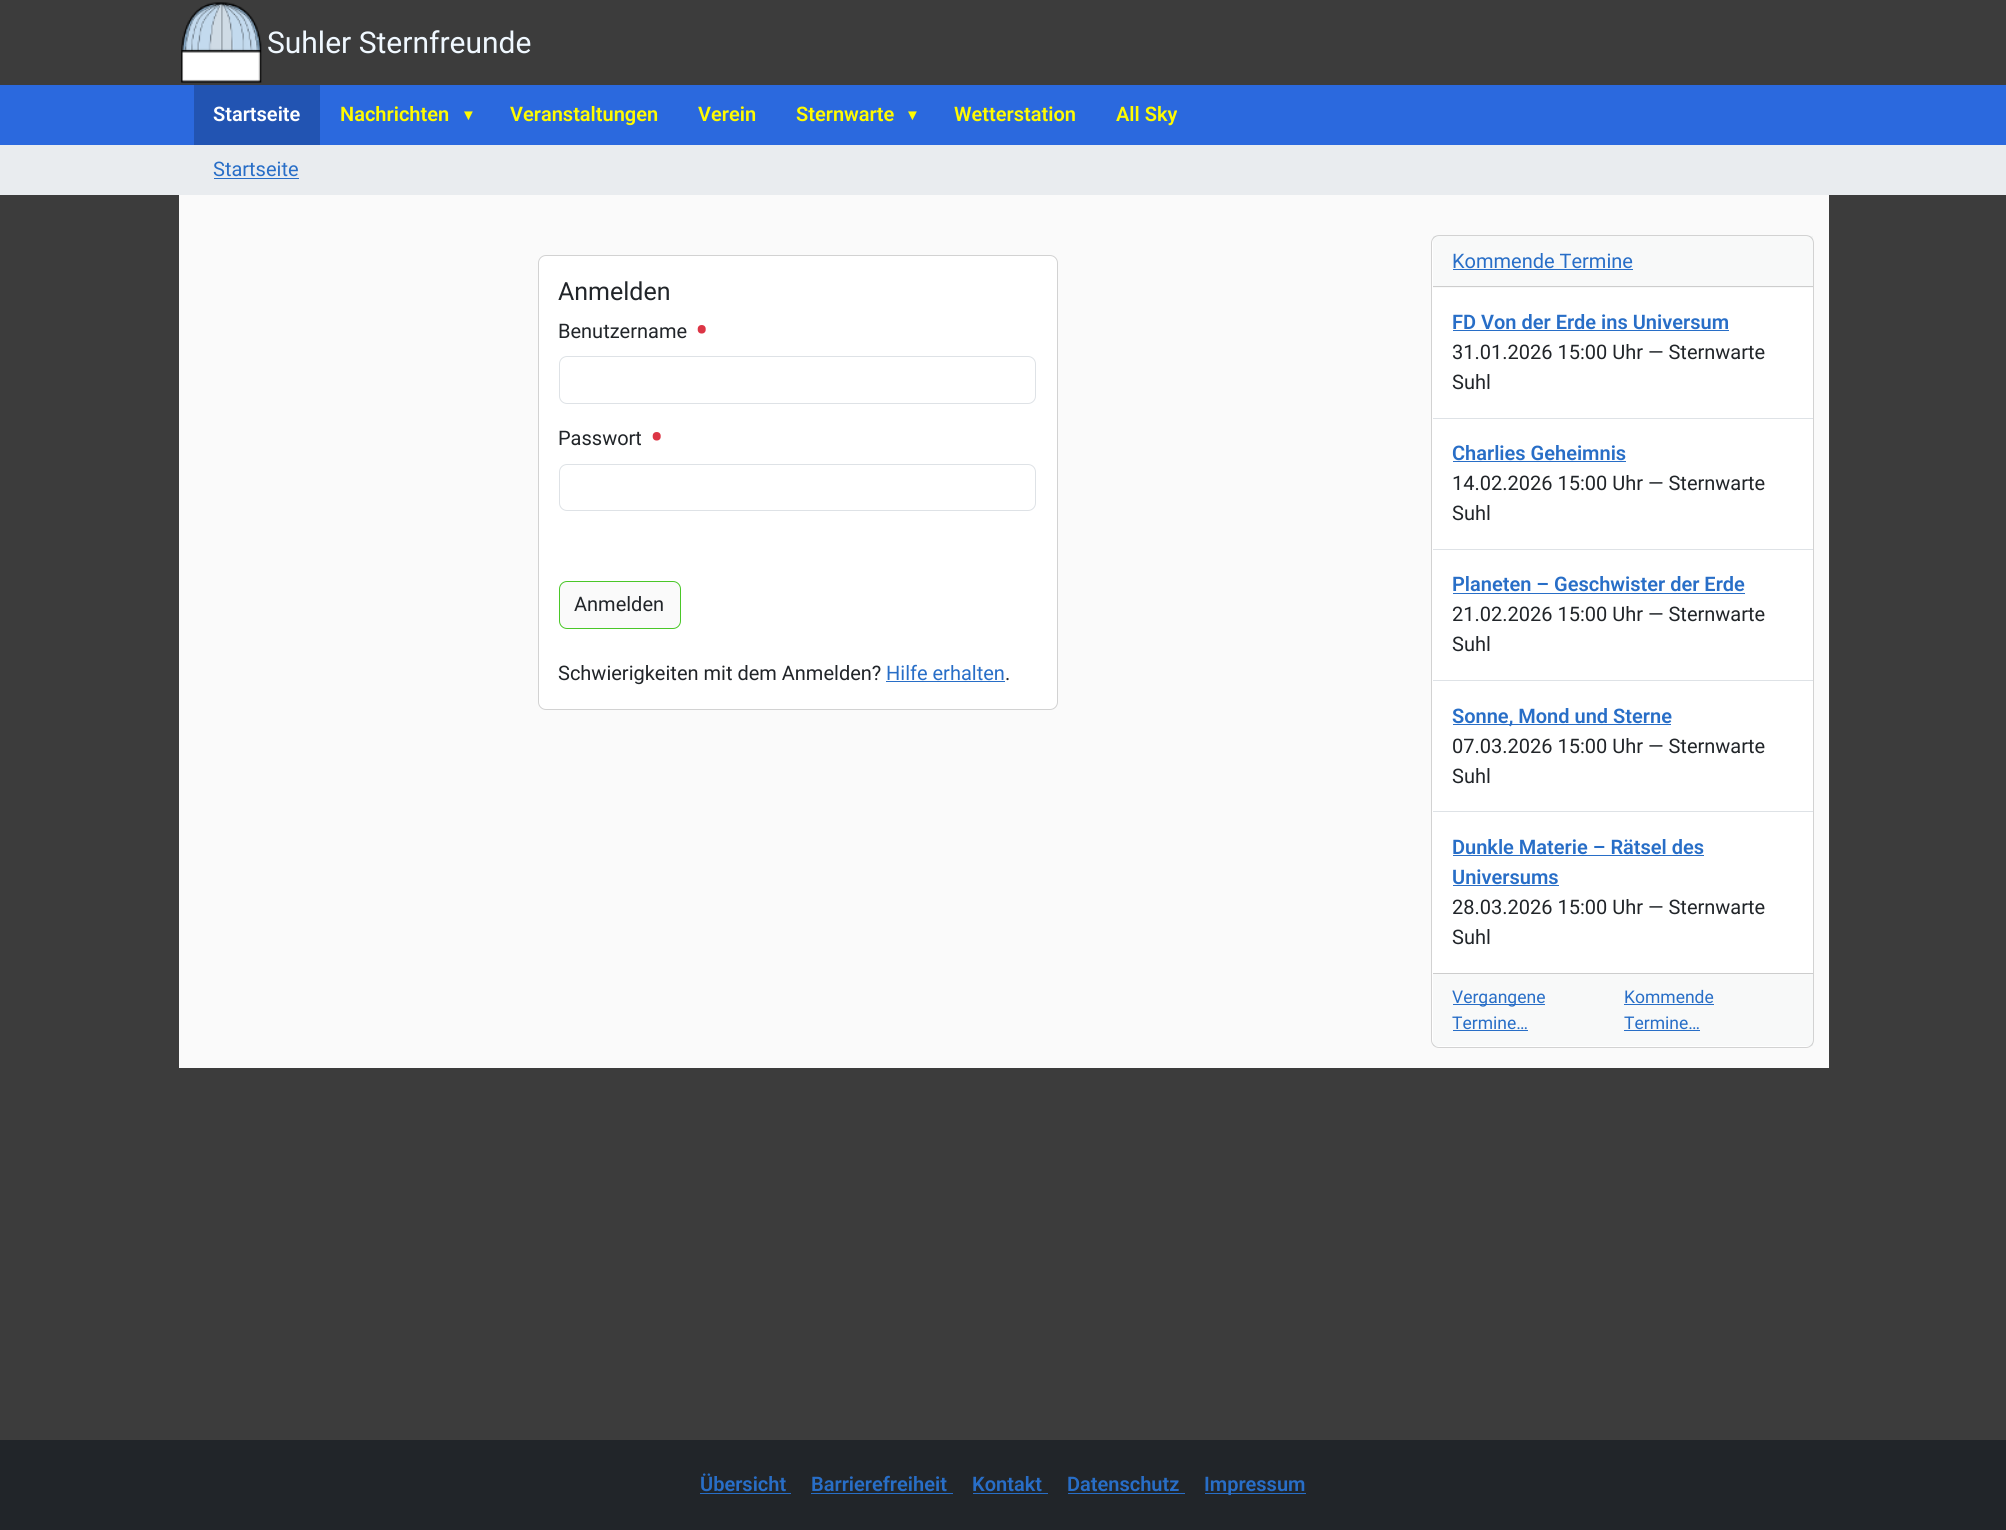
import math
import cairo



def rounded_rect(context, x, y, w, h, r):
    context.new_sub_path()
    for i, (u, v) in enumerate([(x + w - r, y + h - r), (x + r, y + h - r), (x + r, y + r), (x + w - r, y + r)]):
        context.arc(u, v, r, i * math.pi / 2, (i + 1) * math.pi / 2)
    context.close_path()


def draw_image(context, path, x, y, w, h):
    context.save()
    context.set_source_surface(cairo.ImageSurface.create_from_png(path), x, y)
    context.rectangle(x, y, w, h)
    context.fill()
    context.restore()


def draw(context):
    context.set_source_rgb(60 / 255, 60 / 255, 60 / 255)
    context.paint()
    draw_image(context, "images/1.png", 181, 2, 81, 81)
    context.set_source_rgb(43 / 255, 105 / 255, 222 / 255)
    context.rectangle(0, 85, 2006, 60)
    context.fill()
    context.set_source_rgb(34 / 255, 84 / 255, 178 / 255)
    context.rectangle(194, 85, 126, 60)
    context.fill()
    context.set_source_rgb(233 / 255, 236 / 255, 239 / 255)
    context.rectangle(0, 145, 2006, 50)
    context.fill()
    context.set_source_rgb(40 / 255, 110 / 255, 199 / 255)
    context.rectangle(214, 178, 85, 1)
    context.fill()
    context.set_source_rgb(250 / 255, 250 / 255, 250 / 255)
    context.rectangle(179, 195, 1650, 873)
    context.fill()
    context.set_source_rgb(1, 1, 1)
    rounded_rect(context, 538.5, 255.5, 519, 454, 7.5)
    context.fill_preserve()
    context.set_source_rgb(210 / 255, 210 / 255, 210 / 255)
    context.set_line_width(1)
    context.stroke()
    rounded_rect(context, 559.5, 356.5, 476, 47, 7.5)
    context.set_source_rgb(222 / 255, 226 / 255, 230 / 255)
    context.stroke()
    rounded_rect(context, 559.5, 464.5, 476, 46, 7.5)
    context.stroke()
    context.set_source_rgb(250 / 255, 250 / 255, 250 / 255)
    rounded_rect(context, 559.5, 581.5, 121, 47, 7.5)
    context.fill_preserve()
    context.set_source_rgb(74 / 255, 199 / 255, 40 / 255)
    context.stroke()
    context.set_source_rgb(40 / 255, 110 / 255, 199 / 255)
    context.rectangle(886, 681, 119, 1)
    context.fill()
    context.set_source_rgb(1, 1, 1)
    rounded_rect(context, 1431.5, 235.5, 382, 812, 7.5)
    context.fill_preserve()
    context.set_source_rgb(210 / 255, 210 / 255, 210 / 255)
    context.stroke()
    context.set_source_rgba(33 / 255, 37 / 255, 41 / 255, 0.03)
    context.rectangle(1433, 236, 380, 52)
    context.fill()
    context.set_source_rgb(205 / 255, 205 / 255, 205 / 255)
    context.rectangle(1433, 286, 380, 1)
    context.fill()
    context.set_source_rgb(40 / 255, 110 / 255, 199 / 255)
    context.rectangle(1453, 269, 180, 1)
    context.fill()
    context.rectangle(1453, 330, 276, 1)
    context.fill()
    context.set_source_rgb(222 / 255, 226 / 255, 230 / 255)
    context.rectangle(1433, 418, 380, 1)
    context.fill()
    context.set_source_rgb(40 / 255, 110 / 255, 199 / 255)
    context.rectangle(1453, 461, 173, 1)
    context.fill()
    context.set_source_rgb(222 / 255, 226 / 255, 230 / 255)
    context.rectangle(1433, 549, 380, 1)
    context.fill()
    context.set_source_rgb(40 / 255, 110 / 255, 199 / 255)
    context.rectangle(1453, 593, 292, 1)
    context.fill()
    context.set_source_rgb(222 / 255, 226 / 255, 230 / 255)
    context.rectangle(1433, 680, 380, 1)
    context.fill()
    context.set_source_rgb(40 / 255, 110 / 255, 199 / 255)
    context.rectangle(1453, 724, 218, 1)
    context.fill()
    context.set_source_rgb(222 / 255, 226 / 255, 230 / 255)
    context.rectangle(1433, 811, 380, 1)
    context.fill()
    context.set_source_rgb(40 / 255, 110 / 255, 199 / 255)
    context.rectangle(1453, 855, 251, 1)
    context.fill()
    context.rectangle(1453, 885, 106, 1)
    context.fill()
    context.set_source_rgba(33 / 255, 37 / 255, 41 / 255, 0.03)
    context.rectangle(1433, 974, 380, 72)
    context.fill()
    context.set_source_rgb(205 / 255, 205 / 255, 205 / 255)
    context.rectangle(1433, 973, 380, 1)
    context.fill()
    context.set_source_rgb(40 / 255, 110 / 255, 199 / 255)
    context.rectangle(1453, 1004, 92, 1)
    context.fill()
    context.rectangle(1453, 1030, 75, 1)
    context.fill()
    context.rectangle(1624, 1004, 90, 1)
    context.fill()
    context.rectangle(1624, 1030, 76, 1)
    context.fill()
    context.set_source_rgb(33 / 255, 37 / 255, 41 / 255)
    context.rectangle(0, 1440, 2006, 90)
    context.fill()
    context.set_source_rgb(40 / 255, 110 / 255, 199 / 255)
    context.rectangle(700, 1493, 91, 1)
    context.fill()
    context.rectangle(811, 1493, 142, 1)
    context.fill()
    context.rectangle(973, 1493, 75, 1)
    context.fill()
    context.rectangle(1068, 1493, 117, 1)
    context.fill()
    context.rectangle(1205, 1493, 101, 1)
    context.fill()
    context.select_font_face("Roboto")
    context.set_font_size(30)
    context.set_source_rgb(240 / 255, 248 / 255, 1)
    context.move_to(267, 53)
    context.show_text("Suhler Sternfreunde")
    context.select_font_face("Roboto SemiBold")
    context.set_font_size(20)
    context.set_source_rgb(1, 1, 1)
    context.move_to(213, 121)
    context.show_text("Startseite")
    context.set_source_rgb(1, 251 / 255, 0)
    context.move_to(340, 121)
    context.show_text("Nachrichten")
    context.select_font_face("Liberation Sans", cairo.FontSlant.NORMAL, cairo.FontWeight.BOLD)
    context.set_font_size(15)
    context.move_to(461, 120)
    context.show_text("▼")
    context.select_font_face("Roboto SemiBold")
    context.set_font_size(20)
    context.move_to(510, 121)
    context.show_text("Veranstaltungen")
    context.move_to(698, 121)
    context.show_text("Verein")
    context.move_to(796, 121)
    context.show_text("Sternwarte")
    context.select_font_face("Liberation Sans", cairo.FontSlant.NORMAL, cairo.FontWeight.BOLD)
    context.set_font_size(15)
    context.move_to(905, 120)
    context.show_text("▼")
    context.select_font_face("Roboto SemiBold")
    context.set_font_size(20)
    context.move_to(954, 121)
    context.show_text("Wetterstation")
    context.move_to(1116, 121)
    context.show_text("All Sky")
    context.select_font_face("Roboto")
    context.set_source_rgb(40 / 255, 110 / 255, 199 / 255)
    context.move_to(213, 176)
    context.show_text("Startseite")
    context.set_font_size(25)
    context.set_source_rgb(33 / 255, 37 / 255, 41 / 255)
    context.move_to(558, 300)
    context.show_text("Anmelden")
    context.set_font_size(20)
    context.move_to(558, 338)
    context.show_text("Benutzername")
    context.set_font_size(40)
    context.set_source_rgb(220 / 255, 53 / 255, 69 / 255)
    context.move_to(695, 344)
    context.show_text("•")
    context.set_font_size(20)
    context.set_source_rgb(33 / 255, 37 / 255, 41 / 255)
    context.move_to(558, 445)
    context.show_text("Passwort")
    context.set_font_size(40)
    context.set_source_rgb(220 / 255, 53 / 255, 69 / 255)
    context.move_to(650, 451)
    context.show_text("•")
    context.set_font_size(20)
    context.set_source_rgb(33 / 255, 37 / 255, 41 / 255)
    context.move_to(574, 611)
    context.show_text("Anmelden")
    context.move_to(558, 680)
    context.show_text("Schwierigkeiten mit dem Anmelden?")
    context.set_source_rgb(40 / 255, 110 / 255, 199 / 255)
    context.move_to(886, 680)
    context.show_text("Hilfe erhalten")
    context.set_source_rgb(33 / 255, 37 / 255, 41 / 255)
    context.move_to(1005, 680)
    context.show_text(".")
    context.set_source_rgb(40 / 255, 110 / 255, 199 / 255)
    context.move_to(1452, 268)
    context.show_text("Kommende Termine")
    context.select_font_face("Roboto SemiBold")
    context.move_to(1452, 329)
    context.show_text("FD Von der Erde ins Universum")
    context.select_font_face("Roboto")
    context.set_source_rgb(33 / 255, 37 / 255, 41 / 255)
    context.move_to(1452, 359)
    context.show_text("31.01.2026 15:00 Uhr — Sternwarte")
    context.move_to(1452, 389)
    context.show_text("Suhl")
    context.select_font_face("Roboto SemiBold")
    context.set_source_rgb(40 / 255, 110 / 255, 199 / 255)
    context.move_to(1452, 460)
    context.show_text("Charlies Geheimnis")
    context.select_font_face("Roboto")
    context.set_source_rgb(33 / 255, 37 / 255, 41 / 255)
    context.move_to(1452, 490)
    context.show_text("14.02.2026 15:00 Uhr — Sternwarte")
    context.move_to(1452, 520)
    context.show_text("Suhl")
    context.select_font_face("Roboto SemiBold")
    context.set_source_rgb(40 / 255, 110 / 255, 199 / 255)
    context.move_to(1452, 591)
    context.show_text("Planeten – Geschwister der Erde")
    context.select_font_face("Roboto")
    context.set_source_rgb(33 / 255, 37 / 255, 41 / 255)
    context.move_to(1452, 621)
    context.show_text("21.02.2026 15:00 Uhr — Sternwarte")
    context.move_to(1452, 651)
    context.show_text("Suhl")
    context.select_font_face("Roboto SemiBold")
    context.set_source_rgb(40 / 255, 110 / 255, 199 / 255)
    context.move_to(1452, 723)
    context.show_text("Sonne, Mond und Sterne")
    context.select_font_face("Roboto")
    context.set_source_rgb(33 / 255, 37 / 255, 41 / 255)
    context.move_to(1452, 753)
    context.show_text("07.03.2026 15:00 Uhr — Sternwarte")
    context.move_to(1452, 783)
    context.show_text("Suhl")
    context.select_font_face("Roboto SemiBold")
    context.set_source_rgb(40 / 255, 110 / 255, 199 / 255)
    context.move_to(1452, 854)
    context.show_text("Dunkle Materie – Rätsel des")
    context.move_to(1452, 884)
    context.show_text("Universums")
    context.select_font_face("Roboto")
    context.set_source_rgb(33 / 255, 37 / 255, 41 / 255)
    context.move_to(1452, 914)
    context.show_text("28.03.2026 15:00 Uhr — Sternwarte")
    context.move_to(1452, 944)
    context.show_text("Suhl")
    context.set_font_size(17.5)
    context.set_source_rgb(40 / 255, 110 / 255, 199 / 255)
    context.move_to(1452, 1003)
    context.show_text("Vergangene")
    context.move_to(1452, 1029)
    context.show_text("Termine…")
    context.move_to(1624, 1003)
    context.show_text("Kommende")
    context.move_to(1624, 1029)
    context.show_text("Termine…")
    context.select_font_face("Roboto SemiBold")
    context.set_font_size(20)
    context.move_to(700, 1491)
    context.show_text("Übersicht")
    context.move_to(811, 1491)
    context.show_text("Barrierefreiheit")
    context.move_to(972, 1491)
    context.show_text("Kontakt")
    context.move_to(1067, 1491)
    context.show_text("Datenschutz")
    context.move_to(1204, 1491)
    context.show_text("Impressum")


surface = cairo.ImageSurface(cairo.Format.RGB24, 2006, 1530)
context = cairo.Context(surface)
options = cairo.FontOptions()
options.set_hint_metrics(cairo.HintMetrics.OFF)
options.set_hint_style(cairo.HintStyle.NONE)
context.set_font_options(options)
context.set_miter_limit(4)
draw(context)
surface.write_to_png("out.png")
